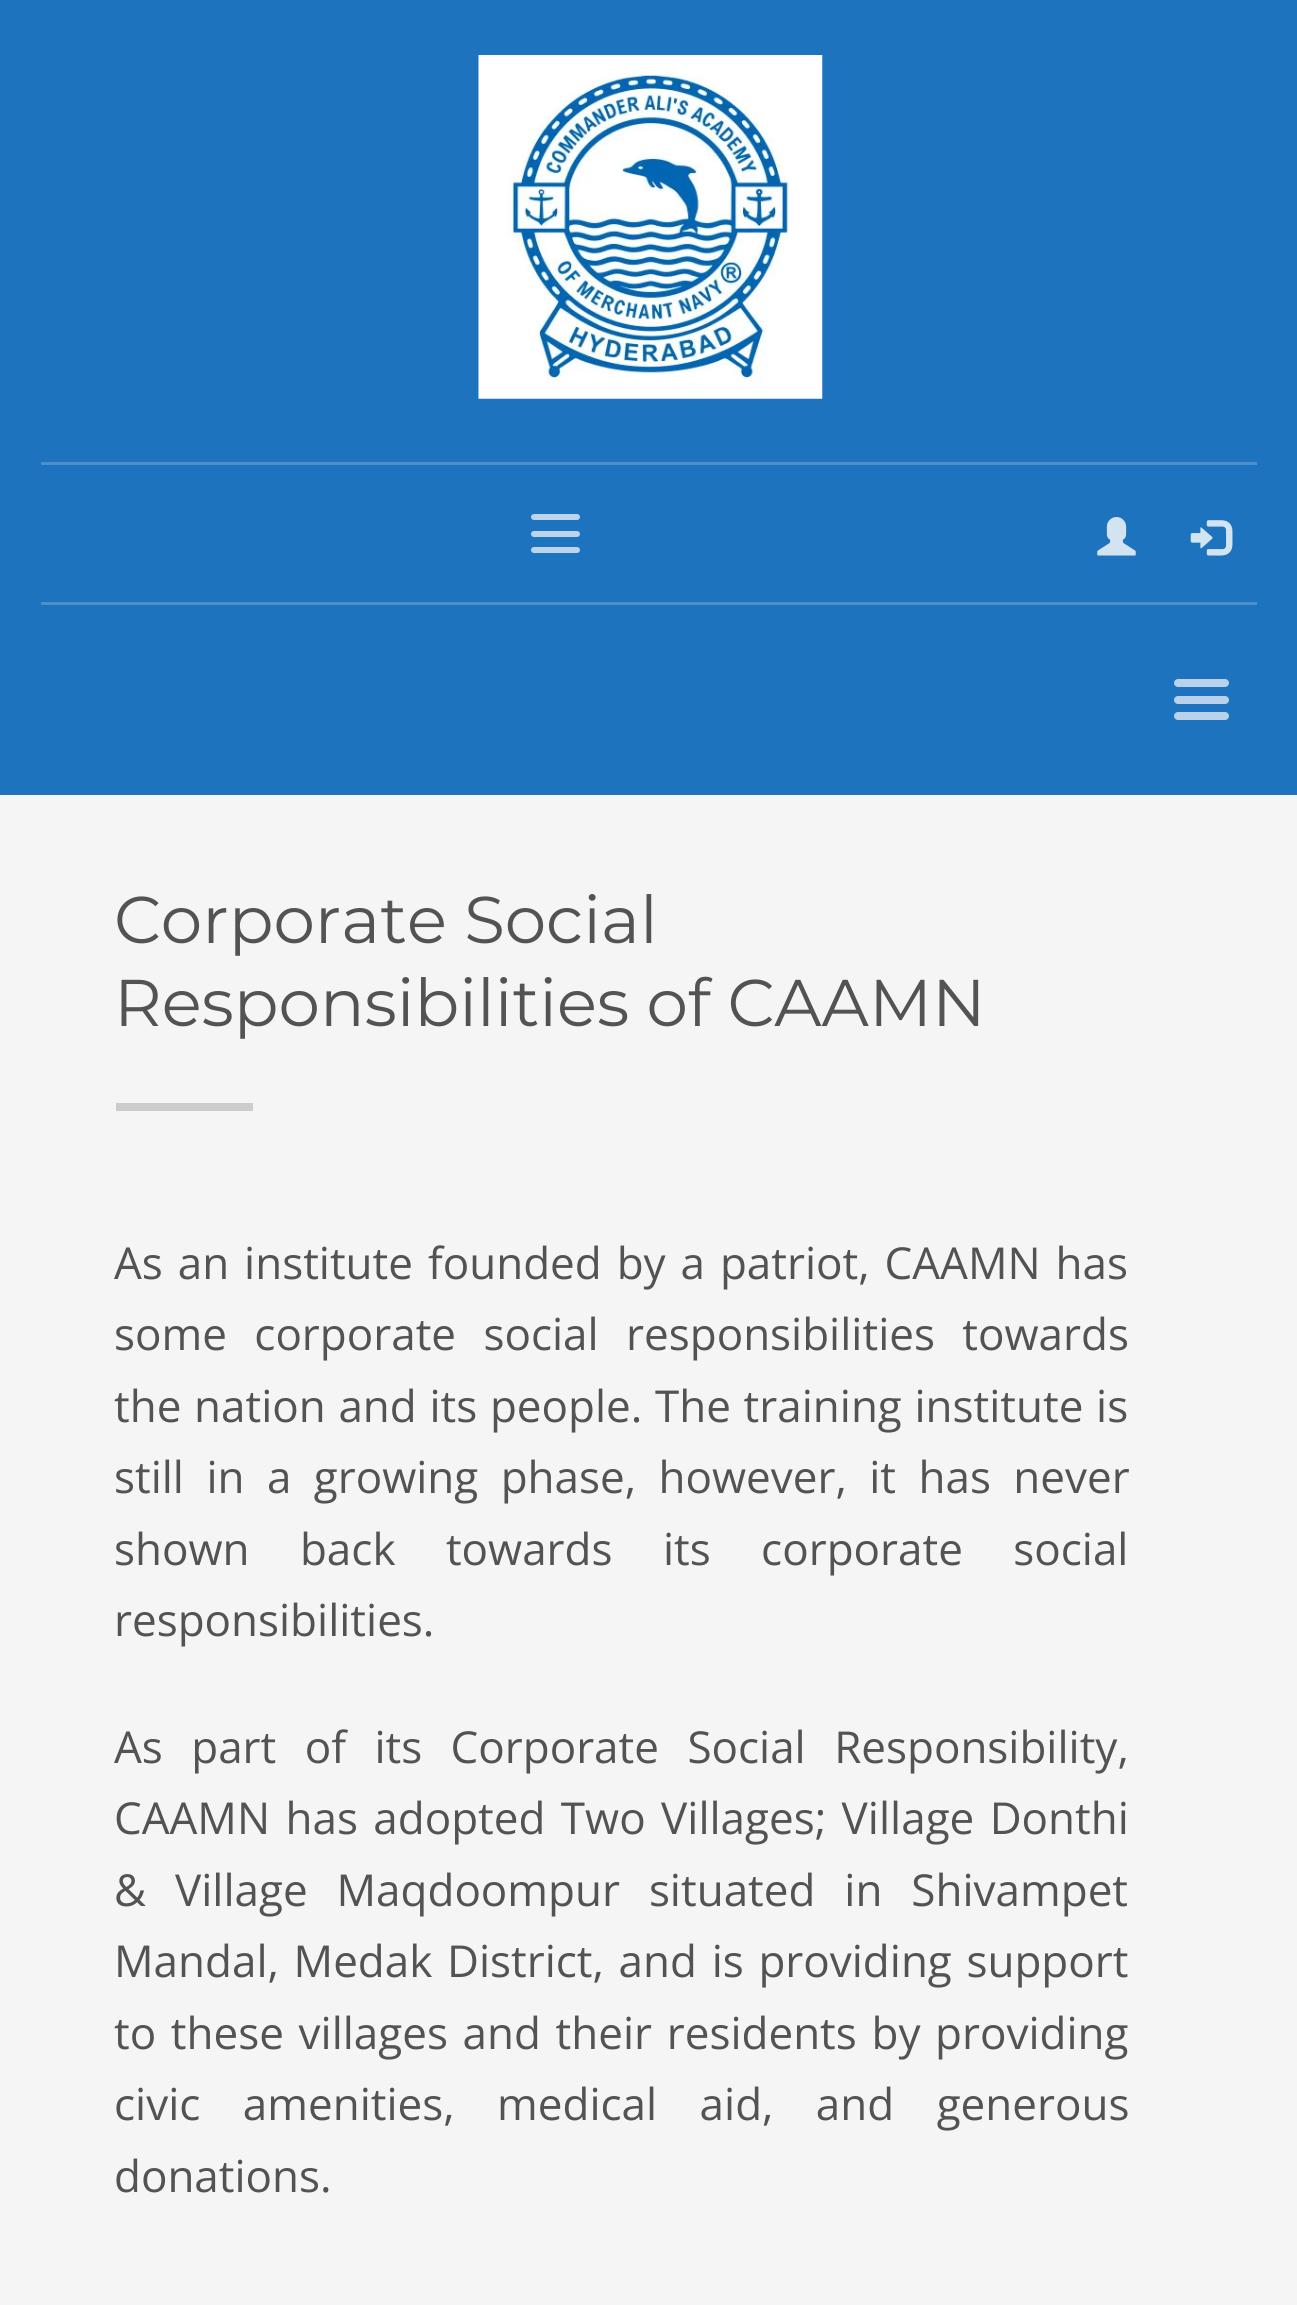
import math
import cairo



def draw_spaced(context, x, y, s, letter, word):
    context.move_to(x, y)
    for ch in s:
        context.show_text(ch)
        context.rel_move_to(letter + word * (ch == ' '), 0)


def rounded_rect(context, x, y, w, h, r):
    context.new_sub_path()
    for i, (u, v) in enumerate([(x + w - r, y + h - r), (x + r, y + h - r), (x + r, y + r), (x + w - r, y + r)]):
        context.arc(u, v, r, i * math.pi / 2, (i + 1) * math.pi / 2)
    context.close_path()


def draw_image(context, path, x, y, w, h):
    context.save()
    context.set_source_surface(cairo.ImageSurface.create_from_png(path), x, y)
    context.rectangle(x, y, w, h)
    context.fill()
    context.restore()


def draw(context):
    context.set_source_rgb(245 / 255, 245 / 255, 245 / 255)
    context.paint()
    context.set_source_rgb(30 / 255, 115 / 255, 190 / 255)
    context.rectangle(0, 0, 1297, 795)
    context.fill()
    draw_image(context, "images/1.png", 478, 55, 345, 344)
    context.set_source_rgb(75 / 255, 143 / 255, 203 / 255)
    context.rectangle(41, 462, 1216, 3)
    context.fill()
    context.set_source_rgb(188 / 255, 213 / 255, 236 / 255)
    rounded_rect(context, 531, 547, 49, 6, 3)
    context.fill()
    rounded_rect(context, 531, 531, 49, 6, 3)
    context.fill()
    rounded_rect(context, 531, 514, 49, 6, 3)
    context.fill()
    draw_image(context, "images/2.png", 1097, 517, 39, 39)
    draw_image(context, "images/3.png", 1190, 520, 43, 36)
    context.set_source_rgb(75 / 255, 143 / 255, 203 / 255)
    context.rectangle(41, 602, 1216, 3)
    context.fill()
    context.set_source_rgb(183 / 255, 210 / 255, 234 / 255)
    rounded_rect(context, 1174, 679, 55, 8, 4)
    context.fill()
    rounded_rect(context, 1174, 696, 55, 8, 4)
    context.fill()
    rounded_rect(context, 1174, 712, 55, 8, 4)
    context.fill()
    context.set_source_rgb(204 / 255, 204 / 255, 204 / 255)
    context.rectangle(116, 1103, 137, 8)
    context.fill()
    context.select_font_face("Montserrat")
    context.set_font_size(66)
    context.set_source_rgb(83 / 255, 83 / 255, 83 / 255)
    context.move_to(114, 943)
    context.show_text("Corporate Social")
    context.move_to(114, 1026)
    context.show_text("Responsibilities of CAAMN")
    context.select_font_face("Open Sans")
    context.set_font_size(44)
    draw_spaced(context, 114, 1279, "As an institute founded by a patriot, CAAMN has", 0, 3.5)
    draw_spaced(context, 114, 1350, "some corporate social responsibilities towards", 0, 16)
    draw_spaced(context, 114, 1422, "the nation and its people. The training institute is", 0, 1.25)
    draw_spaced(context, 114, 1493, "still in a growing phase, however, it has never", 0, 11)
    draw_spaced(context, 114, 1565, "shown back towards its corporate social", 0, 39)
    context.move_to(114, 1636)
    context.show_text("responsibilities.")
    draw_spaced(context, 114, 1763, "As part of its Corporate Social Responsibility,", 0, 17)
    draw_spaced(context, 114, 1834, "CAAMN has adopted Two Villages; Village Donthi", 0, 4)
    draw_spaced(context, 114, 1906, "& Village Maqdoompur situated in Shivampet", 0, 17.5)
    draw_spaced(context, 114, 1977, "Mandal, Medak District, and is providing support", 0, 3.25)
    draw_spaced(context, 114, 2049, "to these villages and their residents by providing", 0, 3.25)
    draw_spaced(context, 114, 2120, "civic amenities, medical aid, and generous", 0, 31)
    context.move_to(114, 2192)
    context.show_text("donations.")


surface = cairo.ImageSurface(cairo.Format.RGB24, 1297, 2305)
context = cairo.Context(surface)
options = cairo.FontOptions()
options.set_hint_metrics(cairo.HintMetrics.OFF)
options.set_hint_style(cairo.HintStyle.NONE)
context.set_font_options(options)
context.set_miter_limit(4)
draw(context)
surface.write_to_png("out.png")
